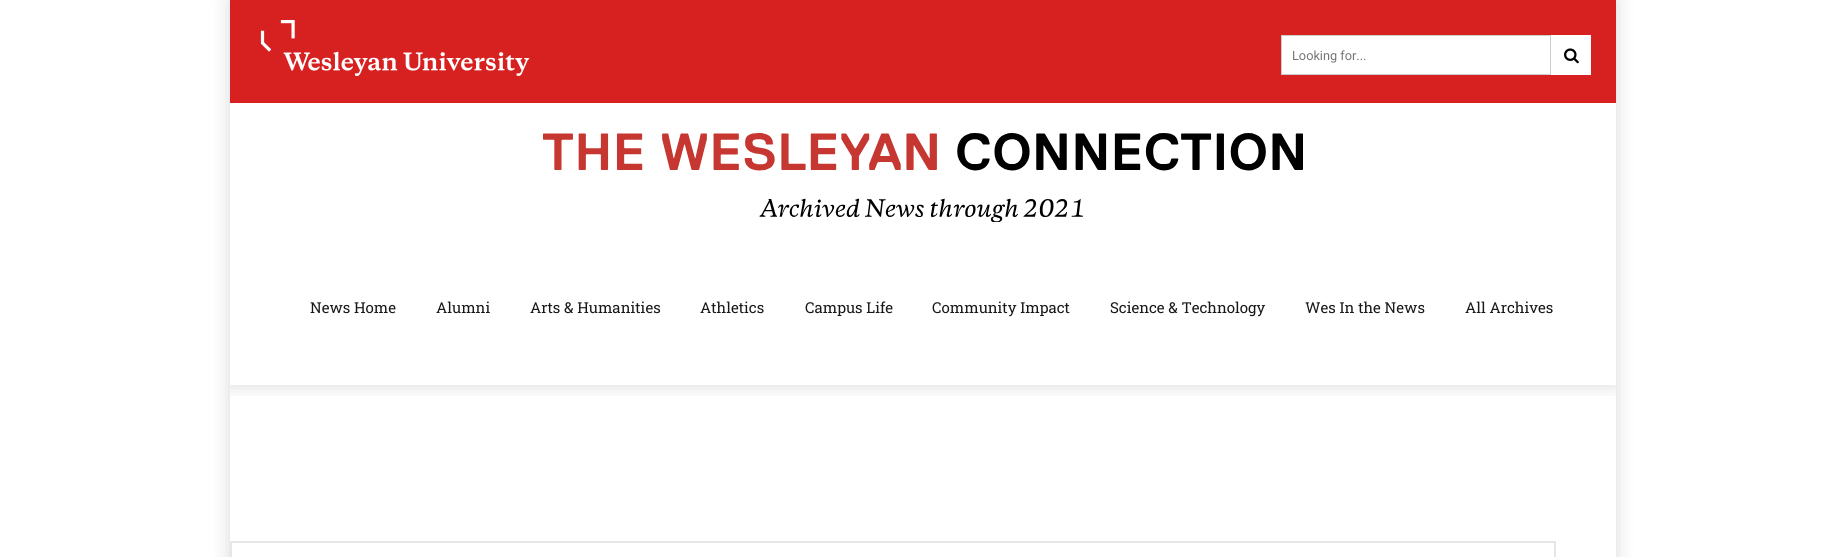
import math
import cairo



def rounded_rect(context, x, y, w, h, r):
    context.new_sub_path()
    for i, (u, v) in enumerate([(x + w - r, y + h - r), (x + r, y + h - r), (x + r, y + r), (x + w - r, y + r)]):
        context.arc(u, v, r, i * math.pi / 2, (i + 1) * math.pi / 2)
    context.close_path()


def draw_shadow(context, x, y, w, h, r, blur, alpha):
    context.push_group_with_content(cairo.Content.ALPHA)
    context.set_operator(cairo.Operator.SOURCE)
    for i in range(15, -16, -2):
        e = blur * i / 6
        if min(w, h) + 2 * e > 0:
            context.set_source_rgba(0, 0, 0, alpha * math.erfc((i - 1) / 8.5) / 2)
            rounded_rect(context, x - e, y - e, w + 2 * e, h + 2 * e, max(0, min(r + e + blur * .6, min(w, h) / 2 + e)))
            context.fill()
    context.mask(context.pop_group())


def draw_image(context, path, x, y, w, h):
    context.save()
    context.set_source_surface(cairo.ImageSurface.create_from_png(path), x, y)
    context.rectangle(x, y, w, h)
    context.fill()
    context.restore()


def draw(context):
    context.set_source_rgb(1, 1, 1)
    context.paint()
    context.save()
    context.set_fill_rule(cairo.FillRule.EVEN_ODD)
    context.new_path()
    context.move_to(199, 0)
    context.line_to(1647, 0)
    context.line_to(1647, 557)
    context.line_to(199, 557)
    context.close_path()
    context.move_to(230, 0)
    context.line_to(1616, 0)
    context.line_to(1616, 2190)
    context.line_to(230, 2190)
    context.close_path()
    context.clip()
    context.set_source_rgb(0, 0, 0)
    draw_shadow(context, 230, 0, 1386, 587, 0, 10, 0.15)
    context.restore()
    context.save()
    context.rectangle(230, 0, 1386, 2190)
    context.clip()
    context.rectangle(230, 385, 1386, 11)
    context.clip()
    context.set_source_rgb(0, 0, 0)
    draw_shadow(context, 230, 0, 1386, 385, 0, 10, 0.15)
    context.restore()
    context.set_source_rgb(215 / 255, 33 / 255, 33 / 255)
    context.rectangle(230, 0, 1386, 103)
    context.fill()
    draw_image(context, "images/1.png", 260, 20, 270, 56)
    context.set_source_rgb(1, 1, 1)
    context.rectangle(1281.5, 35.5, 269, 39)
    context.fill_preserve()
    context.set_source_rgb(204 / 255, 204 / 255, 204 / 255)
    context.set_line_width(1)
    context.stroke()
    context.set_source_rgb(1, 1, 1)
    context.rectangle(1551, 35, 40, 40)
    context.fill()
    draw_image(context, "images/2.png", 1564, 48, 15, 16)
    draw_image(context, "images/3.png", 543, 133, 760, 89)
    context.rectangle(231, 542, 1324, 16)
    context.set_source_rgb(230 / 255, 230 / 255, 230 / 255)
    context.set_line_width(2)
    context.stroke()
    context.select_font_face("Roboto")
    context.set_font_size(12.75)
    context.set_source_rgb(117 / 255, 117 / 255, 117 / 255)
    context.move_to(1292, 60)
    context.show_text("Looking for...")
    context.select_font_face("Roboto Slab")
    context.set_font_size(15)
    context.set_source_rgb(24 / 255, 24 / 255, 24 / 255)
    context.move_to(310, 313)
    context.show_text("News Home")
    context.move_to(436, 313)
    context.show_text("Alumni")
    context.move_to(530, 313)
    context.show_text("Arts & Humanities")
    context.move_to(700, 313)
    context.show_text("Athletics")
    context.move_to(805, 313)
    context.show_text("Campus Life")
    context.move_to(932, 313)
    context.show_text("Community Impact")
    context.move_to(1110, 313)
    context.show_text("Science & Technology")
    context.move_to(1305, 313)
    context.show_text("Wes In the News")
    context.move_to(1465, 313)
    context.show_text("All Archives")


surface = cairo.ImageSurface(cairo.Format.RGB24, 1846, 557)
context = cairo.Context(surface)
options = cairo.FontOptions()
options.set_hint_metrics(cairo.HintMetrics.OFF)
options.set_hint_style(cairo.HintStyle.NONE)
context.set_font_options(options)
context.set_miter_limit(4)
draw(context)
surface.write_to_png("out.png")
